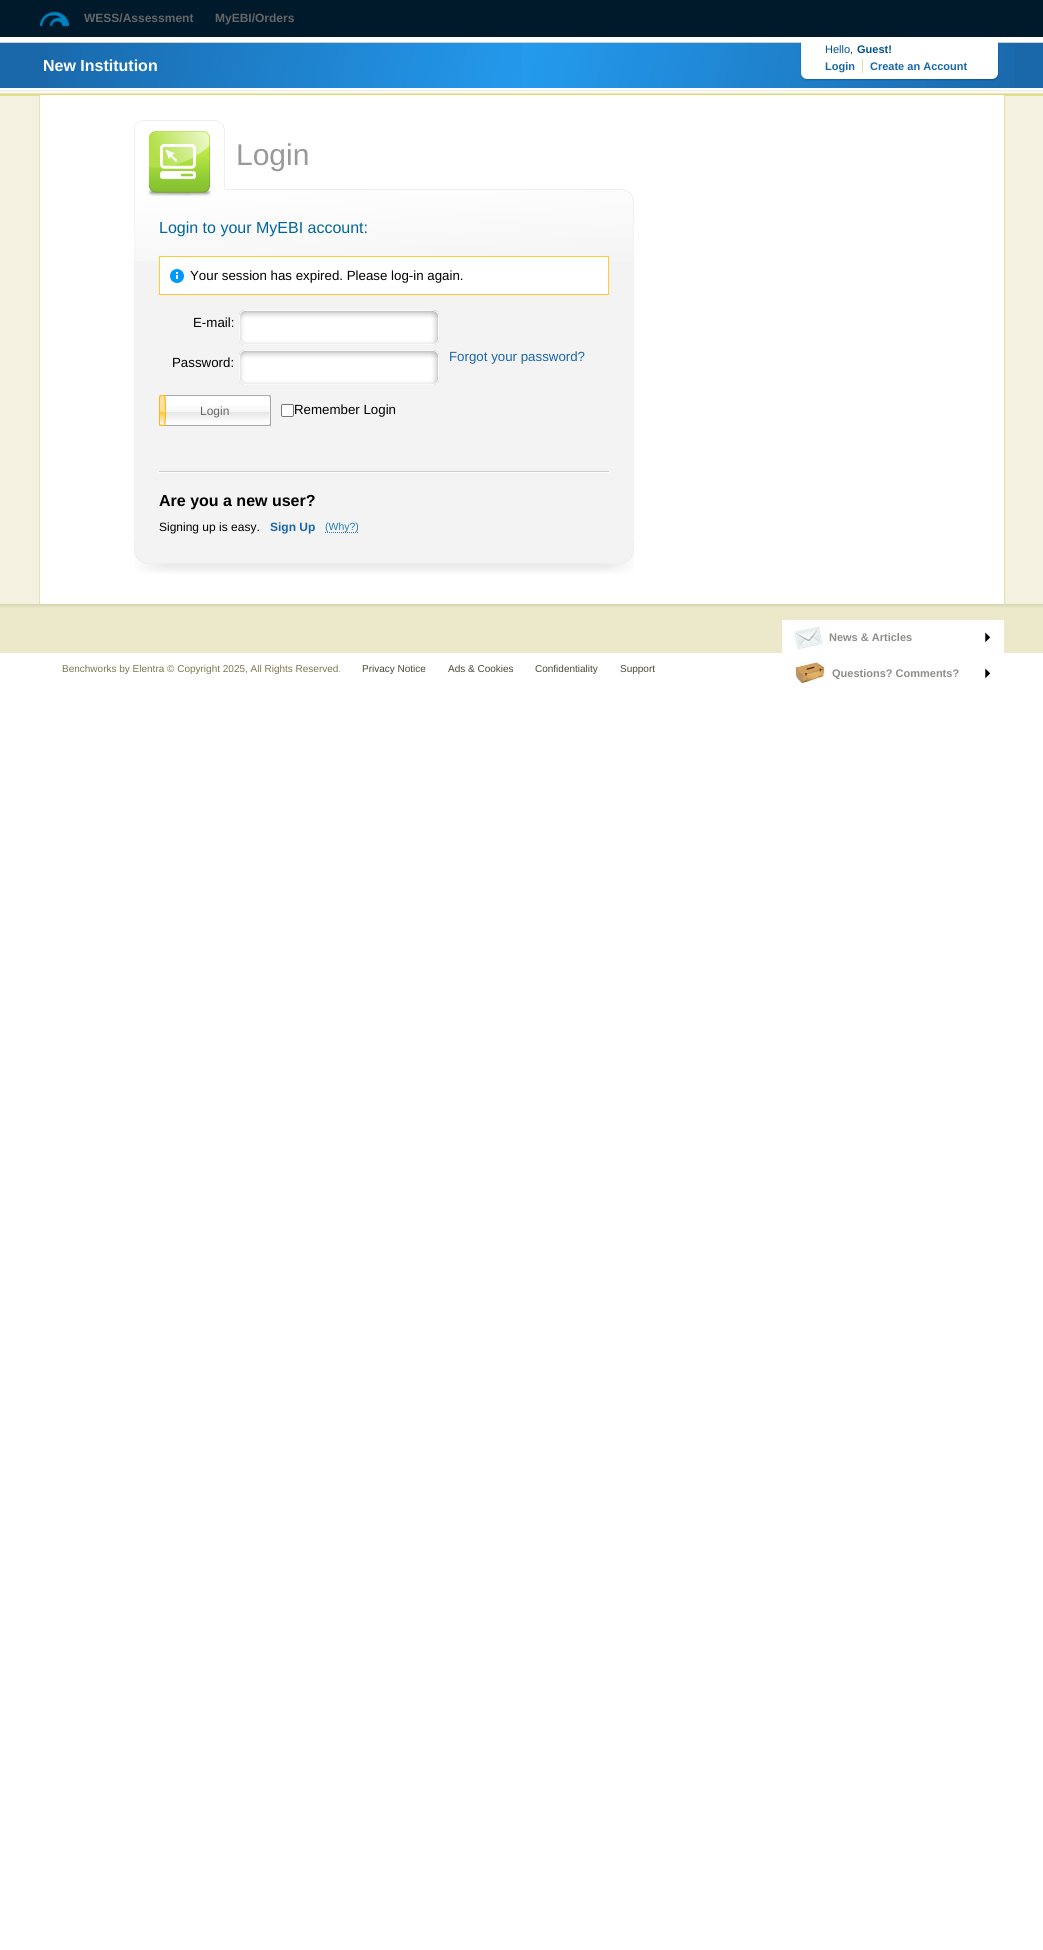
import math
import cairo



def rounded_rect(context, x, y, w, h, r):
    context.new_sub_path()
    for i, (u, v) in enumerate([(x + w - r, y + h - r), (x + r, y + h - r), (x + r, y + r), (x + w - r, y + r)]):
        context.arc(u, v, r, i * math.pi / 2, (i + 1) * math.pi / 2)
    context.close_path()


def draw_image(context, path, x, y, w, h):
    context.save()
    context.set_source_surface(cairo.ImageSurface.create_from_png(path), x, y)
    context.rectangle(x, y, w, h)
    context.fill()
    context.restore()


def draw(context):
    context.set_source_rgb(1, 1, 1)
    context.paint()
    context.set_source_rgb(0, 25 / 255, 43 / 255)
    context.rectangle(0, 0, 1043, 37)
    context.fill()
    draw_image(context, "images/1.png", 40, 11, 29, 16)
    context.set_source_rgb(25 / 255, 103 / 255, 169 / 255)
    context.rectangle(0, 43, 1043, 45)
    context.fill()
    draw_image(context, "images/2.png", 48, 43, 967, 45)
    draw_image(context, "images/3.png", 0, 42, 1043, 1)
    draw_image(context, "images/4.png", 800, 42, 11, 39)
    draw_image(context, "images/5.png", 810, 42, 189, 39)
    context.set_source_rgb(226 / 255, 223 / 255, 172 / 255)
    context.rectangle(862, 59, 1, 14)
    context.fill()
    draw_image(context, "images/6.png", 0, 90, 1043, 5)
    context.set_source_rgb(243 / 255, 242 / 255, 225 / 255)
    context.rectangle(0, 96, 1043, 508)
    context.fill()
    context.set_source_rgb(226 / 255, 221 / 255, 161 / 255)
    context.rectangle(0, 95, 1043, 1)
    context.fill()
    context.set_source_rgb(1, 1, 1)
    context.rectangle(40, 95, 964, 509)
    context.fill()
    context.set_source_rgb(230 / 255, 226 / 255, 175 / 255)
    context.rectangle(1004, 95, 1, 509)
    context.fill()
    context.rectangle(39, 95, 1, 509)
    context.fill()
    draw_image(context, "images/7.png", 134, 120, 500, 100)
    context.set_source_rgb(243 / 255, 243 / 255, 243 / 255)
    context.rectangle(134, 220, 500, 319)
    context.fill()
    draw_image(context, "images/8.png", 135, 220, 498, 41)
    context.set_source_rgb(1, 1, 1)
    context.rectangle(160, 257, 448, 37)
    context.fill()
    draw_image(context, "images/9.png", 170, 269, 14, 14)
    context.rectangle(159.5, 256.5, 449, 38)
    context.set_source_rgb(1, 204 / 255, 51 / 255)
    context.set_line_width(1)
    context.stroke()
    draw_image(context, "images/10.png", 239, 310, 200, 35)
    draw_image(context, "images/10.png", 239, 350, 200, 35)
    draw_image(context, "images/11.png", 159, 395, 112, 31)
    context.set_source_rgb(1, 1, 1)
    rounded_rect(context, 281.5, 404.5, 12, 12, 1.5)
    context.fill_preserve()
    context.set_source_rgb(118 / 255, 118 / 255, 118 / 255)
    context.stroke()
    context.set_source_rgb(204 / 255, 204 / 255, 204 / 255)
    context.rectangle(159, 471, 450, 1)
    context.fill()
    context.set_source_rgb(1, 1, 1)
    context.rectangle(159, 472, 450, 1)
    context.fill()
    context.new_path()
    context.move_to(325, 532.5)
    context.line_to(359, 532.5)
    context.set_source_rgb(33 / 255, 124 / 255, 185 / 255)
    context.set_dash([1, 1])
    context.stroke()
    draw_image(context, "images/12.png", 134, 539, 500, 35)
    context.set_source_rgb(236 / 255, 233 / 255, 203 / 255)
    context.rectangle(0, 608, 1043, 45)
    context.fill()
    draw_image(context, "images/13.png", 0, 604, 1043, 4)
    context.set_source_rgb(1, 1, 1)
    context.rectangle(782, 620, 222, 33)
    context.fill()
    draw_image(context, "images/14.png", 794, 626, 29, 24)
    draw_image(context, "images/15.png", 985, 632, 6, 10)
    draw_image(context, "images/16.png", 794, 662, 32, 23)
    draw_image(context, "images/15.png", 985, 668, 6, 10)
    context.select_font_face("Liberation Sans", cairo.FontSlant.NORMAL, cairo.FontWeight.BOLD)
    context.set_font_size(12)
    context.set_source_rgb(102 / 255, 102 / 255, 102 / 255)
    context.move_to(84, 22)
    context.show_text("WESS/Assessment")
    context.move_to(215, 22)
    context.show_text("MyEBI/Orders")
    context.set_font_size(16)
    context.set_source_rgb(1, 1, 1)
    context.move_to(43, 71)
    context.show_text("New Institution")
    context.select_font_face("Liberation Sans")
    context.set_font_size(11)
    context.set_source_rgb(0, 81 / 255, 138 / 255)
    context.move_to(825, 53)
    context.show_text("Hello,")
    context.select_font_face("Liberation Sans", cairo.FontSlant.NORMAL, cairo.FontWeight.BOLD)
    context.move_to(857, 53)
    context.show_text("Guest!")
    context.set_source_rgb(25 / 255, 102 / 255, 167 / 255)
    context.move_to(825, 70)
    context.show_text("Login")
    context.move_to(870, 70)
    context.show_text("Create an Account")
    context.select_font_face("Liberation Sans")
    context.set_font_size(30)
    context.set_source_rgb(153 / 255, 153 / 255, 153 / 255)
    context.move_to(236, 165)
    context.show_text("Login")
    context.set_font_size(16)
    context.set_source_rgb(0, 102 / 255, 153 / 255)
    context.move_to(159, 233)
    context.show_text("Login to your MyEBI account:")
    context.set_font_size(13.3)
    context.set_source_rgb(0, 0, 0)
    context.move_to(190, 280)
    context.show_text("Your session has expired. Please log-in again.")
    context.move_to(193, 327)
    context.show_text("E-mail:")
    context.move_to(172, 367)
    context.show_text("Password:")
    context.set_source_rgb(25 / 255, 102 / 255, 167 / 255)
    context.move_to(449, 361)
    context.show_text("Forgot your password?")
    context.set_font_size(12)
    context.set_source_rgb(102 / 255, 102 / 255, 102 / 255)
    context.move_to(200, 415)
    context.show_text("Login")
    context.set_font_size(13.3)
    context.set_source_rgb(0, 0, 0)
    context.move_to(294, 414)
    context.show_text("Remember Login")
    context.select_font_face("Liberation Sans", cairo.FontSlant.NORMAL, cairo.FontWeight.BOLD)
    context.set_font_size(16)
    context.move_to(159, 506)
    context.show_text("Are you a new user?")
    context.select_font_face("Liberation Sans")
    context.set_font_size(12)
    context.move_to(159, 531)
    context.show_text("Signing up is easy.")
    context.select_font_face("Liberation Sans", cairo.FontSlant.NORMAL, cairo.FontWeight.BOLD)
    context.set_source_rgb(25 / 255, 102 / 255, 167 / 255)
    context.move_to(270, 531)
    context.show_text("Sign Up")
    context.select_font_face("Liberation Sans")
    context.set_font_size(10.5)
    context.set_source_rgb(33 / 255, 124 / 255, 185 / 255)
    context.move_to(325, 530)
    context.show_text("(Why?)")
    context.set_font_size(10)
    context.set_source_rgb(125 / 255, 120 / 255, 76 / 255)
    context.move_to(62, 672)
    context.show_text("Benchworks by Elentra © Copyright 2025, All Rights Reserved.")
    context.set_source_rgb(75 / 255, 73 / 255, 57 / 255)
    context.move_to(362, 672)
    context.show_text("Privacy Notice")
    context.move_to(448, 672)
    context.show_text("Ads & Cookies")
    context.move_to(535, 672)
    context.show_text("Confidentiality")
    context.move_to(620, 672)
    context.show_text("Support")
    context.select_font_face("Liberation Sans", cairo.FontSlant.NORMAL, cairo.FontWeight.BOLD)
    context.set_font_size(11)
    context.set_source_rgb(141 / 255, 141 / 255, 137 / 255)
    context.move_to(829, 641)
    context.show_text("News & Articles")
    context.move_to(832, 677)
    context.show_text("Questions? Comments?")


surface = cairo.ImageSurface(cairo.Format.RGB24, 1043, 1950)
context = cairo.Context(surface)
options = cairo.FontOptions()
options.set_hint_metrics(cairo.HintMetrics.OFF)
options.set_hint_style(cairo.HintStyle.NONE)
context.set_font_options(options)
context.set_miter_limit(4)
draw(context)
surface.write_to_png("out.png")
